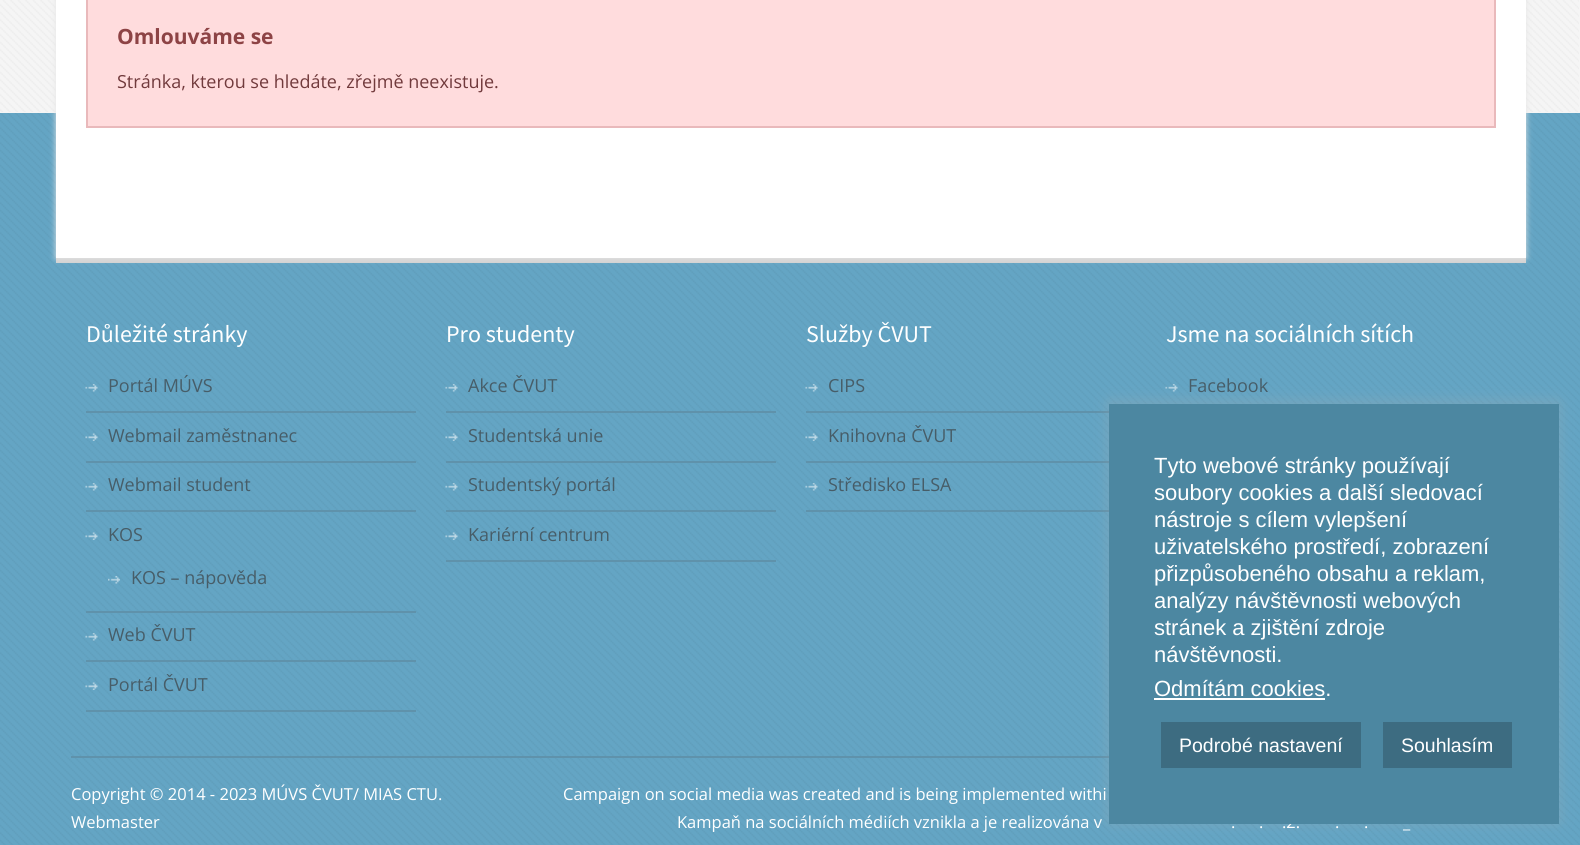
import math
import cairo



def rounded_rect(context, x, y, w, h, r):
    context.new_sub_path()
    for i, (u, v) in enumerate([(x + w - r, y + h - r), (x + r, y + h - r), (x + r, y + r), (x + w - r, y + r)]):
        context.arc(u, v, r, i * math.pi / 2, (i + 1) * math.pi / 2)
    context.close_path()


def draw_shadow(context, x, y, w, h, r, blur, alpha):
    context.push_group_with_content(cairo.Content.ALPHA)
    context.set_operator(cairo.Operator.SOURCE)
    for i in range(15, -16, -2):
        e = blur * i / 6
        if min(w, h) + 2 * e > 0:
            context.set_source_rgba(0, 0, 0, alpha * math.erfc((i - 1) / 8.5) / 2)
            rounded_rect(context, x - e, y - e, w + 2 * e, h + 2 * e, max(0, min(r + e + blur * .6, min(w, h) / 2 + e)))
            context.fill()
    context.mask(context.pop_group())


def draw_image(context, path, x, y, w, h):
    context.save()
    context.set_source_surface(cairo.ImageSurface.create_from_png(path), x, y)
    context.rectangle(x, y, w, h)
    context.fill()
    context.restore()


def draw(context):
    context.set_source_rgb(245 / 255, 245 / 255, 245 / 255)
    context.paint()
    draw_image(context, "images/1.png", 0, 0, 1579, 112)
    context.set_source_rgb(100 / 255, 165 / 255, 196 / 255)
    context.rectangle(0, 113, 1580, 732)
    context.fill()
    draw_image(context, "images/2.png", 0, 113, 1580, 732)
    context.set_source_rgb(210 / 255, 210 / 255, 210 / 255)
    context.rectangle(56, 258, 1470, 5)
    context.fill()
    context.set_source_rgb(229 / 255, 229 / 255, 229 / 255)
    draw_shadow(context, 56, -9, 1470, 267, 0, 3, 1)
    context.set_source_rgb(1, 1, 1)
    context.rectangle(56, 0, 1470, 258)
    context.fill()
    context.set_source_rgb(1, 220 / 255, 221 / 255)
    context.rectangle(87, -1, 1408, 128)
    context.fill_preserve()
    context.set_source_rgb(233 / 255, 185 / 255, 187 / 255)
    context.stroke()
    draw_image(context, "images/3.png", 85, 384, 13, 8)
    context.set_source_rgb(95 / 255, 146 / 255, 171 / 255)
    context.rectangle(86, 411, 330, 2)
    context.fill()
    draw_image(context, "images/4.png", 85, 433, 13, 8)
    context.rectangle(86, 461, 330, 2)
    context.fill()
    draw_image(context, "images/5.png", 85, 483, 13, 8)
    context.rectangle(86, 510, 330, 2)
    context.fill()
    draw_image(context, "images/6.png", 85, 532, 13, 8)
    context.rectangle(86, 611, 330, 2)
    context.fill()
    draw_image(context, "images/7.png", 108, 576, 12, 8)
    draw_image(context, "images/5.png", 85, 633, 13, 8)
    context.rectangle(86, 660, 330, 2)
    context.fill()
    draw_image(context, "images/6.png", 85, 682, 13, 8)
    context.rectangle(86, 710, 330, 2)
    context.fill()
    draw_image(context, "images/3.png", 445, 384, 13, 8)
    context.rectangle(446, 411, 330, 2)
    context.fill()
    draw_image(context, "images/4.png", 445, 433, 13, 8)
    context.rectangle(446, 461, 330, 2)
    context.fill()
    draw_image(context, "images/5.png", 445, 483, 13, 8)
    context.rectangle(446, 510, 330, 2)
    context.fill()
    draw_image(context, "images/6.png", 445, 532, 13, 8)
    context.rectangle(446, 560, 330, 2)
    context.fill()
    draw_image(context, "images/8.png", 805, 384, 13, 8)
    context.rectangle(806, 411, 303, 2)
    context.fill()
    draw_image(context, "images/9.png", 805, 433, 13, 8)
    context.rectangle(806, 461, 303, 2)
    context.fill()
    draw_image(context, "images/10.png", 805, 483, 13, 8)
    context.rectangle(806, 510, 303, 2)
    context.fill()
    draw_image(context, "images/11.png", 1165, 384, 13, 8)
    context.rectangle(71, 756, 1038, 2)
    context.fill()
    context.set_source_rgb(172 / 255, 171 / 255, 171 / 255)
    draw_shadow(context, 1109, 402, 450, 420, 0, 7.5, 0.3)
    context.select_font_face("Open Sans", cairo.FontSlant.NORMAL, cairo.FontWeight.BOLD)
    context.set_font_size(21)
    context.set_source_rgb(141 / 255, 67 / 255, 69 / 255)
    context.move_to(117, 44)
    context.show_text("Omlouváme se")
    context.select_font_face("Open Sans")
    context.set_font_size(18)
    context.set_source_rgb(113 / 255, 58 / 255, 60 / 255)
    context.move_to(117, 88)
    context.show_text("Stránka, kterou se hledáte, zřejmě neexistuje.")
    context.select_font_face("Source Sans Pro")
    context.set_font_size(24)
    context.set_source_rgb(1, 1, 1)
    context.move_to(86, 342)
    context.show_text("Důležité stránky")
    context.select_font_face("Open Sans")
    context.set_font_size(18)
    context.set_source_rgb(71 / 255, 93 / 255, 104 / 255)
    context.move_to(108, 392)
    context.show_text("Portál MÚVS")
    context.move_to(108, 442)
    context.show_text("Webmail zaměstnanec")
    context.move_to(108, 491)
    context.show_text("Webmail student")
    context.move_to(108, 541)
    context.show_text("KOS")
    context.move_to(131, 584)
    context.show_text("KOS – nápověda")
    context.move_to(108, 641)
    context.show_text("Web ČVUT")
    context.move_to(108, 691)
    context.show_text("Portál ČVUT")
    context.select_font_face("Source Sans Pro")
    context.set_font_size(24)
    context.set_source_rgb(1, 1, 1)
    context.move_to(446, 342)
    context.show_text("Pro studenty")
    context.select_font_face("Open Sans")
    context.set_font_size(18)
    context.set_source_rgb(71 / 255, 93 / 255, 104 / 255)
    context.move_to(468, 392)
    context.show_text("Akce ČVUT")
    context.move_to(468, 442)
    context.show_text("Studentská unie")
    context.move_to(468, 491)
    context.show_text("Studentský portál")
    context.move_to(468, 541)
    context.show_text("Kariérní centrum")
    context.select_font_face("Source Sans Pro")
    context.set_font_size(24)
    context.set_source_rgb(1, 1, 1)
    context.move_to(806, 342)
    context.show_text("Služby ČVUT")
    context.select_font_face("Open Sans")
    context.set_font_size(18)
    context.set_source_rgb(71 / 255, 93 / 255, 104 / 255)
    context.move_to(828, 392)
    context.show_text("CIPS")
    context.move_to(828, 442)
    context.show_text("Knihovna ČVUT")
    context.move_to(828, 491)
    context.show_text("Středisko ELSA")
    context.select_font_face("Source Sans Pro")
    context.set_font_size(24)
    context.set_source_rgb(1, 1, 1)
    context.move_to(1166, 342)
    context.show_text("Jsme na sociálních sítích")
    context.select_font_face("Open Sans")
    context.set_font_size(18)
    context.set_source_rgb(71 / 255, 93 / 255, 104 / 255)
    context.move_to(1188, 392)
    context.show_text("Facebook")
    context.set_font_size(16.5)
    context.set_source_rgb(1, 1, 1)
    context.move_to(71, 800)
    context.show_text("Copyright © 2014 - 2023 MÚVS ČVUT/ MIAS CTU.")
    context.move_to(71, 828)
    context.show_text("Webmaster")
    context.move_to(563, 800)
    context.show_text("Campaign on social media was created and is being implemented withi")
    context.move_to(677, 828)
    context.show_text("Kampaň na sociálních médiích vznikla a je realizována v")
    context.move_to(1231, 828)
    context.show_text(".")
    context.move_to(1259, 828)
    context.show_text(".")
    context.move_to(1282, 828)
    context.show_text(".2.")
    context.move_to(1335, 828)
    context.show_text(".")
    context.move_to(1364, 828)
    context.show_text(".")
    context.move_to(1403, 828)
    context.show_text("_")
    context.set_source_rgb(76 / 255, 135 / 255, 161 / 255)
    context.rectangle(1109, 404, 450, 420)
    context.fill()
    context.select_font_face("Liberation Sans")
    context.set_font_size(22)
    context.set_source_rgb(1, 1, 1)
    context.move_to(1154, 473)
    context.show_text("Tyto webové stránky používají")
    context.move_to(1154, 500)
    context.show_text("soubory cookies a další sledovací")
    context.move_to(1154, 527)
    context.show_text("nástroje s cílem vylepšení")
    context.move_to(1154, 554)
    context.show_text("uživatelského prostředí, zobrazení")
    context.move_to(1154, 581)
    context.show_text("přizpůsobeného obsahu a reklam,")
    context.move_to(1154, 608)
    context.show_text("analýzy návštěvnosti webových")
    context.move_to(1154, 635)
    context.show_text("stránek a zjištění zdroje")
    context.move_to(1154, 662)
    context.show_text("návštěvnosti.")
    context.move_to(1154, 696)
    context.show_text("Odmítám cookies.")
    context.rectangle(1154, 698, 171, 2)
    context.fill()
    context.set_source_rgb(61 / 255, 108 / 255, 129 / 255)
    context.rectangle(1161, 722, 200, 46)
    context.fill()
    context.set_font_size(19.5)
    context.set_source_rgb(1, 1, 1)
    context.move_to(1179, 752)
    context.show_text("Podrobé nastavení")
    context.set_source_rgb(61 / 255, 108 / 255, 129 / 255)
    context.rectangle(1383, 722, 129, 46)
    context.fill()
    context.set_source_rgb(1, 1, 1)
    context.move_to(1401, 752)
    context.show_text("Souhlasím")


surface = cairo.ImageSurface(cairo.Format.RGB24, 1580, 845)
context = cairo.Context(surface)
options = cairo.FontOptions()
options.set_hint_metrics(cairo.HintMetrics.OFF)
options.set_hint_style(cairo.HintStyle.NONE)
context.set_font_options(options)
context.set_miter_limit(4)
draw(context)
surface.write_to_png("out.png")
